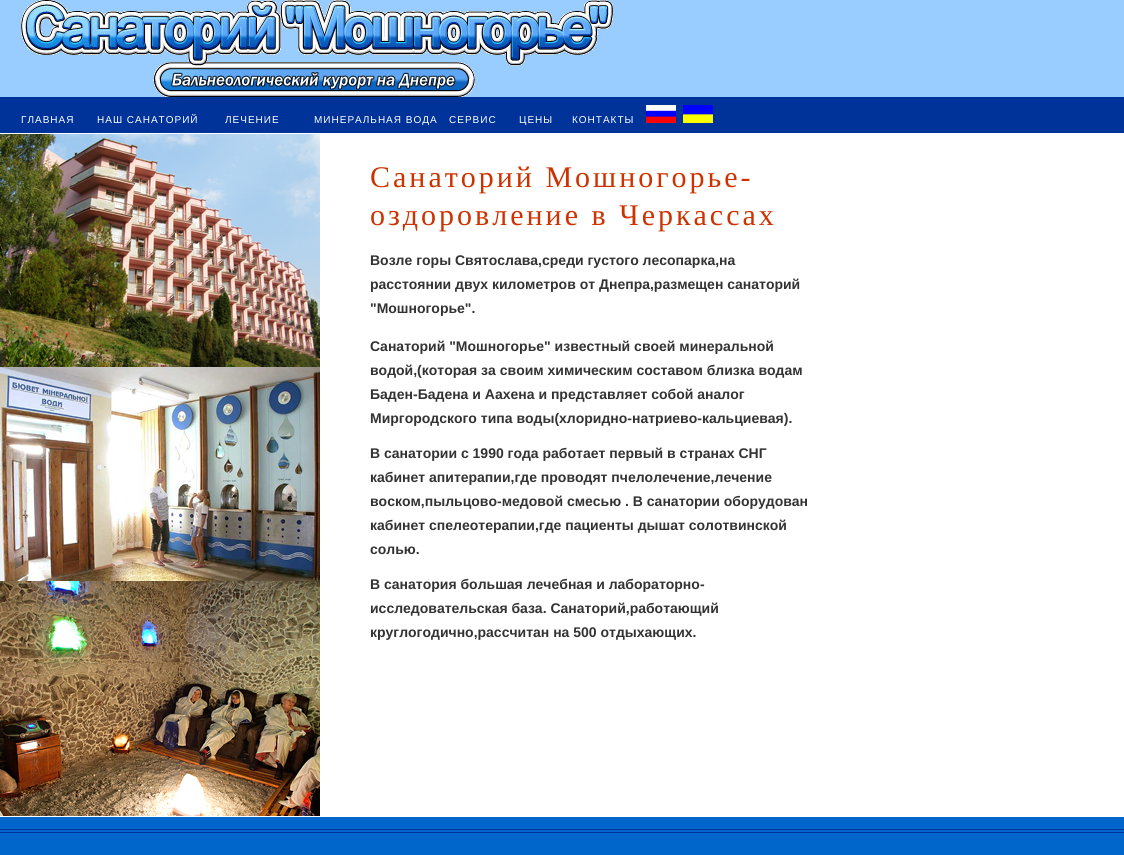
import math
import cairo



def draw_spaced(context, x, y, s, letter, word):
    context.move_to(x, y)
    for ch in s:
        context.show_text(ch)
        context.rel_move_to(letter + word * (ch == ' '), 0)


def draw_image(context, path, x, y, w, h):
    context.save()
    context.set_source_surface(cairo.ImageSurface.create_from_png(path), x, y)
    context.rectangle(x, y, w, h)
    context.fill()
    context.restore()


def draw(context):
    context.set_source_rgb(0, 102 / 255, 204 / 255)
    context.paint()
    context.set_source_rgb(153 / 255, 204 / 255, 1)
    context.rectangle(0, 0, 1124, 97)
    context.fill()
    draw_image(context, "images/1.png", 21, 0, 592, 97)
    context.set_source_rgb(0, 51 / 255, 153 / 255)
    context.rectangle(0, 97, 1124, 36)
    context.fill()
    draw_image(context, "images/2.png", 646, 105, 30, 18)
    draw_image(context, "images/3.png", 683, 105, 30, 18)
    context.set_source_rgb(1, 1, 1)
    context.rectangle(0, 133, 1124, 1)
    context.fill()
    context.rectangle(320, 134, 804, 682)
    context.fill()
    draw_image(context, "images/4.png", 0, 134, 320, 233)
    draw_image(context, "images/5.png", 0, 367, 320, 214)
    draw_image(context, "images/6.png", 0, 581, 320, 235)
    context.rectangle(0, 816, 1124, 1)
    context.fill()
    context.set_source_rgb(0, 51 / 255, 153 / 255)
    context.rectangle(0, 829, 1124, 1)
    context.fill()
    context.rectangle(0, 832, 1124, 1)
    context.fill()
    context.select_font_face("Liberation Sans")
    context.set_font_size(10)
    context.set_source_rgb(1, 1, 1)
    draw_spaced(context, 21, 123, "ГЛАВНАЯ", 1, 0)
    draw_spaced(context, 97, 123, "НАШ САНАТОРИЙ", 1, 0)
    draw_spaced(context, 225, 123, "ЛЕЧЕНИЕ", 1, 0)
    draw_spaced(context, 314, 123, "МИНЕРАЛЬНАЯ ВОДА", 1, 0)
    draw_spaced(context, 449, 123, "СЕРВИС", 1, 0)
    draw_spaced(context, 519, 123, "ЦЕНЫ", 1, 0)
    draw_spaced(context, 572, 123, "КОНТАКТЫ", 1, 0)
    context.select_font_face("Liberation Serif")
    context.set_font_size(30)
    context.set_source_rgb(204 / 255, 51 / 255, 0)
    draw_spaced(context, 370, 187, "Санаторий Мошногорье-", 3, 0)
    draw_spaced(context, 370, 225, "оздоровление в Черкассах", 3, 0)
    context.select_font_face("Liberation Sans", cairo.FontSlant.NORMAL, cairo.FontWeight.BOLD)
    context.set_font_size(14)
    context.set_source_rgb(51 / 255, 51 / 255, 51 / 255)
    context.move_to(370, 265)
    context.show_text("Возле горы Святослава,среди густого лесопарка,на")
    context.move_to(370, 289)
    context.show_text("расстоянии двух километров от Днепра,размещен санаторий")
    context.move_to(370, 313)
    context.show_text("\"Мошногорье\".")
    context.move_to(370, 351)
    context.show_text("Санаторий \"Мошногорье\" известный своей минеральной")
    context.move_to(370, 375)
    context.show_text("водой,(которая за своим химическим составом близка водам")
    context.move_to(370, 399)
    context.show_text("Баден-Бадена и Аахена и представляет собой аналог")
    context.move_to(370, 423)
    context.show_text("Миргородского типа воды(хлоридно-натриево-кальциевая).")
    context.move_to(370, 458)
    context.show_text("В санатории с 1990 года работает первый в странах СНГ")
    context.move_to(370, 482)
    context.show_text("кабинет апитерапии,где проводят пчелолечение,лечение")
    context.move_to(370, 506)
    context.show_text("воском,пыльцово-медовой смесью . В санатории оборудован")
    context.move_to(370, 530)
    context.show_text("кабинет спелеотерапии,где пациенты дышат солотвинской")
    context.move_to(370, 554)
    context.show_text("солью.")
    context.move_to(370, 589)
    context.show_text("В санатория большая лечебная и лабораторно-")
    context.move_to(370, 613)
    context.show_text("исследовательская база. Санаторий,работающий")
    context.move_to(370, 637)
    context.show_text("круглогодично,рассчитан на 500 отдыхающих.")


surface = cairo.ImageSurface(cairo.Format.RGB24, 1124, 855)
context = cairo.Context(surface)
options = cairo.FontOptions()
options.set_hint_metrics(cairo.HintMetrics.OFF)
options.set_hint_style(cairo.HintStyle.NONE)
context.set_font_options(options)
context.set_miter_limit(4)
draw(context)
surface.write_to_png("out.png")
